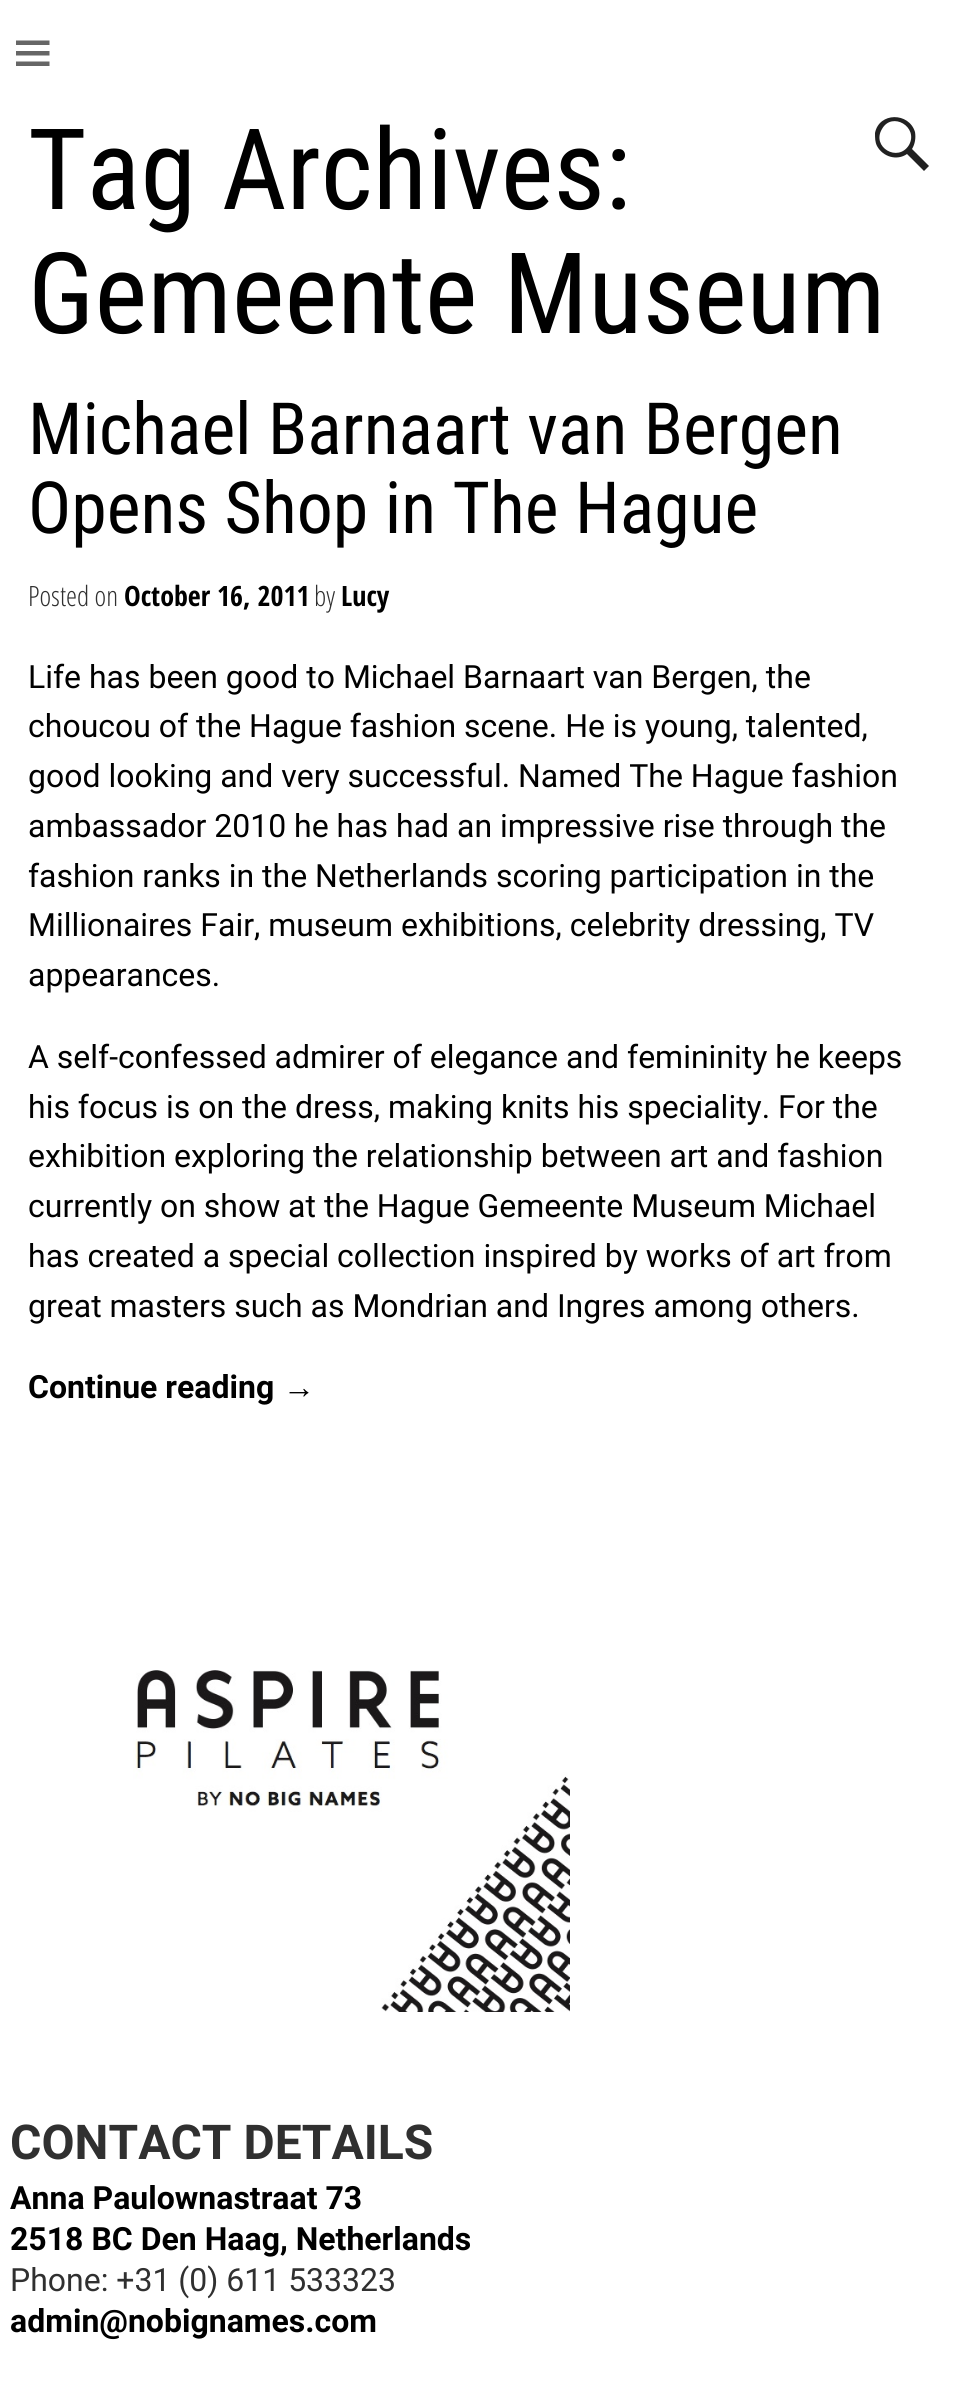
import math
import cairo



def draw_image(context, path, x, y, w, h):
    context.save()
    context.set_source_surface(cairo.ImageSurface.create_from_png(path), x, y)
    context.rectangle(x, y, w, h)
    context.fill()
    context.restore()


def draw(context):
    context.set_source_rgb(1, 1, 1)
    context.paint()
    context.set_source_rgb(102 / 255, 102 / 255, 102 / 255)
    context.new_path()
    context.move_to(16, 66)
    context.line_to(16, 61.5)
    context.line_to(49.5, 61.5)
    context.line_to(49.5, 66)
    context.close_path()
    context.move_to(16, 40.5)
    context.line_to(49.5, 40.5)
    context.line_to(49.5, 45)
    context.line_to(16, 45)
    context.close_path()
    context.move_to(16, 55.5)
    context.line_to(16, 51)
    context.line_to(49.5, 51)
    context.line_to(49.5, 55.5)
    context.close_path()
    context.fill()
    context.set_source_rgb(33 / 255, 33 / 255, 33 / 255)
    context.new_path()
    context.move_to(929, 166)
    context.line_to(924, 171)
    context.line_to(907, 154)
    context.curve_to(897, 161, 883, 157, 877, 146)
    context.curve_to(875, 142, 875, 138, 875, 133)
    context.curve_to(879, 112, 909, 112, 915, 132)
    context.curve_to(916, 138, 915, 144, 912, 149)
    context.close_path()
    context.move_to(882, 129)
    context.curve_to(871, 147, 898, 163, 909, 145)
    context.curve_to(919, 127, 892, 111, 882, 129)
    context.close_path()
    context.fill()
    draw_image(context, "images/1.png", 133, 1670, 437, 342)
    context.select_font_face("Roboto Condensed")
    context.set_font_size(112.5)
    context.set_source_rgb(0, 0, 0)
    context.move_to(28, 209)
    context.show_text("Tag Archives:")
    context.move_to(28, 333)
    context.show_text("Gemeente Museum")
    context.set_font_size(72)
    context.move_to(28, 454)
    context.show_text("Michael Barnaart van Bergen")
    context.move_to(28, 533)
    context.show_text("Opens Shop in The Hague")
    context.select_font_face("Open Sans Condensed Light")
    context.set_font_size(28)
    context.set_source_rgb(48 / 255, 48 / 255, 48 / 255)
    context.move_to(28, 606)
    context.show_text("Posted on")
    context.select_font_face("Open Sans Condensed", cairo.FontSlant.NORMAL, cairo.FontWeight.BOLD)
    context.set_source_rgb(0, 0, 0)
    context.move_to(124, 606)
    context.show_text("October 16, 2011")
    context.select_font_face("Open Sans Condensed Light")
    context.set_source_rgb(48 / 255, 48 / 255, 48 / 255)
    context.move_to(314, 606)
    context.show_text("by")
    context.select_font_face("Open Sans Condensed", cairo.FontSlant.NORMAL, cairo.FontWeight.BOLD)
    context.set_source_rgb(0, 0, 0)
    context.move_to(341, 606)
    context.show_text("Lucy")
    context.select_font_face("Roboto")
    context.set_font_size(32)
    context.move_to(28, 688)
    context.show_text("Life has been good to Michael Barnaart van Bergen, the")
    context.move_to(28, 737)
    context.show_text("choucou of the Hague fashion scene. He is young, talented,")
    context.move_to(28, 787)
    context.show_text("good looking and very successful. Named The Hague fashion")
    context.move_to(28, 837)
    context.show_text("ambassador 2010 he has had an impressive rise through the")
    context.move_to(28, 887)
    context.show_text("fashion ranks in the Netherlands scoring participation in the")
    context.move_to(28, 936)
    context.show_text("Millionaires Fair, museum exhibitions, celebrity dressing, TV")
    context.move_to(28, 986)
    context.show_text("appearances.")
    context.move_to(28, 1068)
    context.show_text("A self-confessed admirer of elegance and femininity he keeps")
    context.move_to(28, 1118)
    context.show_text("his focus is on the dress, making knits his speciality. For the")
    context.move_to(28, 1167)
    context.show_text("exhibition exploring the relationship between art and fashion")
    context.move_to(28, 1217)
    context.show_text("currently on show at the Hague Gemeente Museum Michael")
    context.move_to(28, 1267)
    context.show_text("has created a special collection inspired by works of art from")
    context.move_to(28, 1317)
    context.show_text("great masters such as Mondrian and Ingres among others.")
    context.select_font_face("Roboto", cairo.FontSlant.NORMAL, cairo.FontWeight.BOLD)
    context.move_to(28, 1398)
    context.show_text("Continue reading")
    context.select_font_face("Liberation Sans", cairo.FontSlant.NORMAL, cairo.FontWeight.BOLD)
    context.move_to(283, 1398)
    context.show_text("→")
    context.select_font_face("Roboto", cairo.FontSlant.NORMAL, cairo.FontWeight.BOLD)
    context.set_font_size(48)
    context.set_source_rgb(48 / 255, 48 / 255, 48 / 255)
    context.move_to(10, 2159)
    context.show_text("CONTACT DETAILS")
    context.set_font_size(32)
    context.set_source_rgb(0, 0, 0)
    context.move_to(10, 2209)
    context.show_text("Anna Paulownastraat 73")
    context.move_to(10, 2250)
    context.show_text("2518 BC Den Haag, Netherlands")
    context.select_font_face("Roboto")
    context.set_source_rgb(48 / 255, 48 / 255, 48 / 255)
    context.move_to(10, 2291)
    context.show_text("Phone: +31 (0) 611 533323")
    context.select_font_face("Roboto", cairo.FontSlant.NORMAL, cairo.FontWeight.BOLD)
    context.set_source_rgb(0, 0, 0)
    context.move_to(10, 2332)
    context.show_text("admin@nobignames.com")


surface = cairo.ImageSurface(cairo.Format.RGB24, 963, 2386)
context = cairo.Context(surface)
options = cairo.FontOptions()
options.set_hint_metrics(cairo.HintMetrics.OFF)
options.set_hint_style(cairo.HintStyle.NONE)
context.set_font_options(options)
context.set_miter_limit(4)
draw(context)
surface.write_to_png("out.png")
